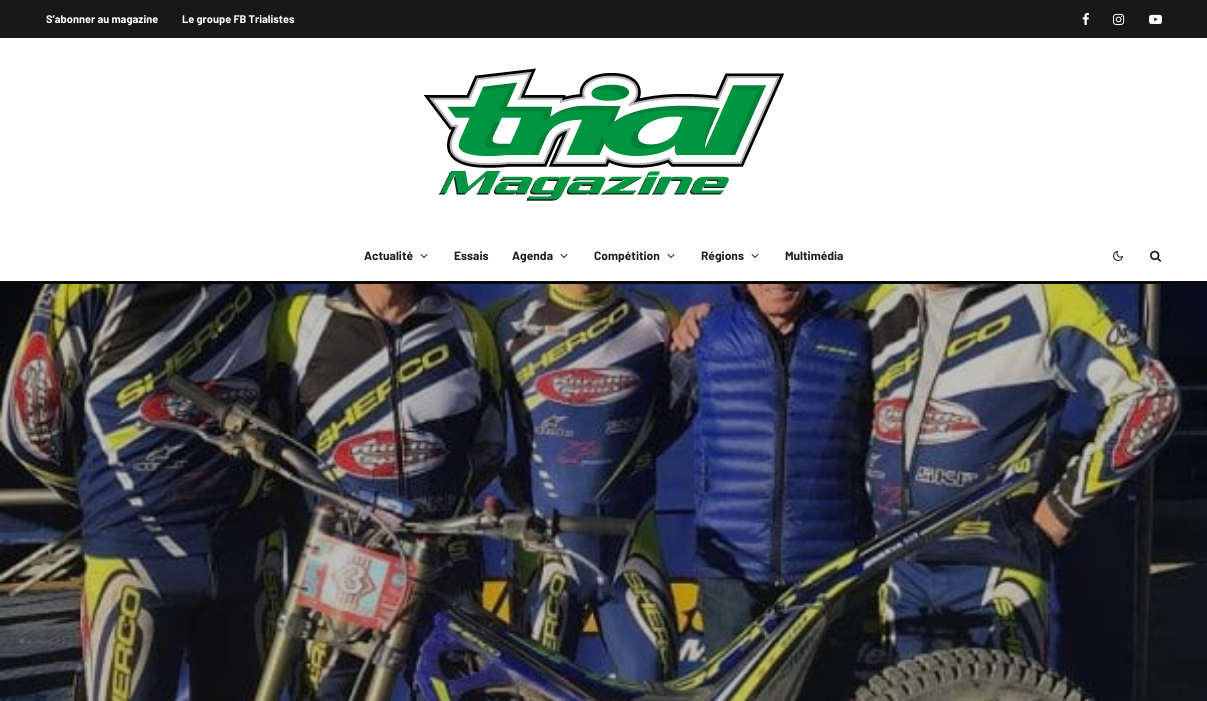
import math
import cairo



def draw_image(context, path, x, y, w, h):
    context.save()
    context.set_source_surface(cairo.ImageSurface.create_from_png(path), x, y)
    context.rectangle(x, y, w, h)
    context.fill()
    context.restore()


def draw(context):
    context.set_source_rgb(1, 1, 1)
    context.paint()
    context.set_source_rgb(24 / 255, 24 / 255, 24 / 255)
    context.rectangle(0, 0, 1207, 38)
    context.fill()
    draw_image(context, "images/1.png", 1082, 12, 7, 13)
    draw_image(context, "images/2.png", 1113, 13, 12, 12)
    draw_image(context, "images/3.png", 1149, 14, 13, 10)
    draw_image(context, "images/4.png", 424, 68, 360, 133)
    context.set_source_rgb(10 / 255, 10 / 255, 10 / 255)
    context.rectangle(0, 281, 1207, 3)
    context.fill()
    draw_image(context, "images/5.png", 420, 254, 8, 4)
    draw_image(context, "images/5.png", 560, 254, 8, 4)
    draw_image(context, "images/5.png", 667, 254, 8, 4)
    draw_image(context, "images/5.png", 751, 254, 8, 4)
    draw_image(context, "images/6.png", 1113, 251, 10, 10)
    draw_image(context, "images/7.png", 1150, 250, 12, 12)
    draw_image(context, "images/8.png", 0, 284, 1207, 417)
    context.select_font_face("Barlow", cairo.FontSlant.NORMAL, cairo.FontWeight.BOLD)
    context.set_font_size(11)
    context.set_source_rgb(1, 1, 1)
    context.move_to(46, 23)
    context.show_text("S’abonner au magazine")
    context.move_to(182, 23)
    context.show_text("Le groupe FB Trialistes")
    context.set_font_size(12)
    context.set_source_rgb(30 / 255, 30 / 255, 30 / 255)
    context.move_to(364, 260)
    context.show_text("Actualité")
    context.move_to(454, 260)
    context.show_text("Essais")
    context.move_to(512, 260)
    context.show_text("Agenda")
    context.move_to(594, 260)
    context.show_text("Compétition")
    context.move_to(701, 260)
    context.show_text("Régions")
    context.move_to(785, 260)
    context.show_text("Multimédia")


surface = cairo.ImageSurface(cairo.Format.RGB24, 1207, 701)
context = cairo.Context(surface)
options = cairo.FontOptions()
options.set_hint_metrics(cairo.HintMetrics.OFF)
options.set_hint_style(cairo.HintStyle.NONE)
context.set_font_options(options)
context.set_miter_limit(4)
draw(context)
surface.write_to_png("out.png")
